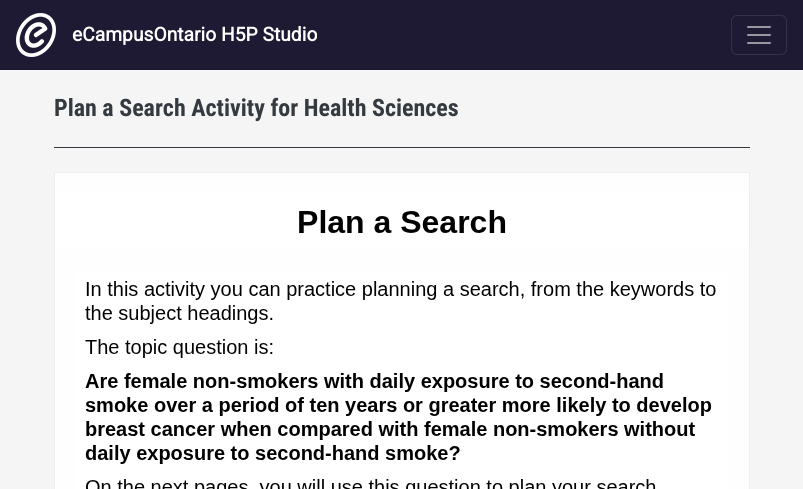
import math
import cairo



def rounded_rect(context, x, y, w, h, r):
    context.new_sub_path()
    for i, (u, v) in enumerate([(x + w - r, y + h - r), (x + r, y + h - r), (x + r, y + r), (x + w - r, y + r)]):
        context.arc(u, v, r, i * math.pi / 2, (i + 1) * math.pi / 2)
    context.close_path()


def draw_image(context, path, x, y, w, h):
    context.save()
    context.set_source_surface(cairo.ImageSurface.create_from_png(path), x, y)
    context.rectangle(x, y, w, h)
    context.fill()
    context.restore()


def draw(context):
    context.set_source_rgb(245 / 255, 245 / 255, 245 / 255)
    context.paint()
    context.set_source_rgb(30 / 255, 26 / 255, 52 / 255)
    context.rectangle(0, 0, 803, 70)
    context.fill()
    draw_image(context, "images/1.png", 16, 13, 40, 44)
    rounded_rect(context, 731.5, 15.5, 55, 39, 5.5)
    context.set_source_rgb(53 / 255, 49 / 255, 72 / 255)
    context.set_line_width(1)
    context.stroke()
    draw_image(context, "images/2.png", 747, 26, 24, 18)
    context.set_source_rgb(52 / 255, 58 / 255, 64 / 255)
    context.rectangle(54, 147, 696, 1)
    context.fill()
    draw_image(context, "images/3.png", 54, 172, 696, 317)
    context.select_font_face("Roboto", cairo.FontSlant.NORMAL, cairo.FontWeight.BOLD)
    context.set_font_size(19.25)
    context.set_source_rgb(1, 1, 1)
    context.move_to(72, 41)
    context.show_text("eCampusOntario H5P Studio")
    context.select_font_face("Roboto Condensed", cairo.FontSlant.NORMAL, cairo.FontWeight.BOLD)
    context.set_font_size(24)
    context.set_source_rgb(52 / 255, 58 / 255, 64 / 255)
    context.move_to(54, 116)
    context.show_text("Plan a Search Activity for Health Sciences")


surface = cairo.ImageSurface(cairo.Format.RGB24, 803, 489)
context = cairo.Context(surface)
options = cairo.FontOptions()
options.set_hint_metrics(cairo.HintMetrics.OFF)
options.set_hint_style(cairo.HintStyle.NONE)
context.set_font_options(options)
context.set_miter_limit(4)
draw(context)
surface.write_to_png("out.png")
